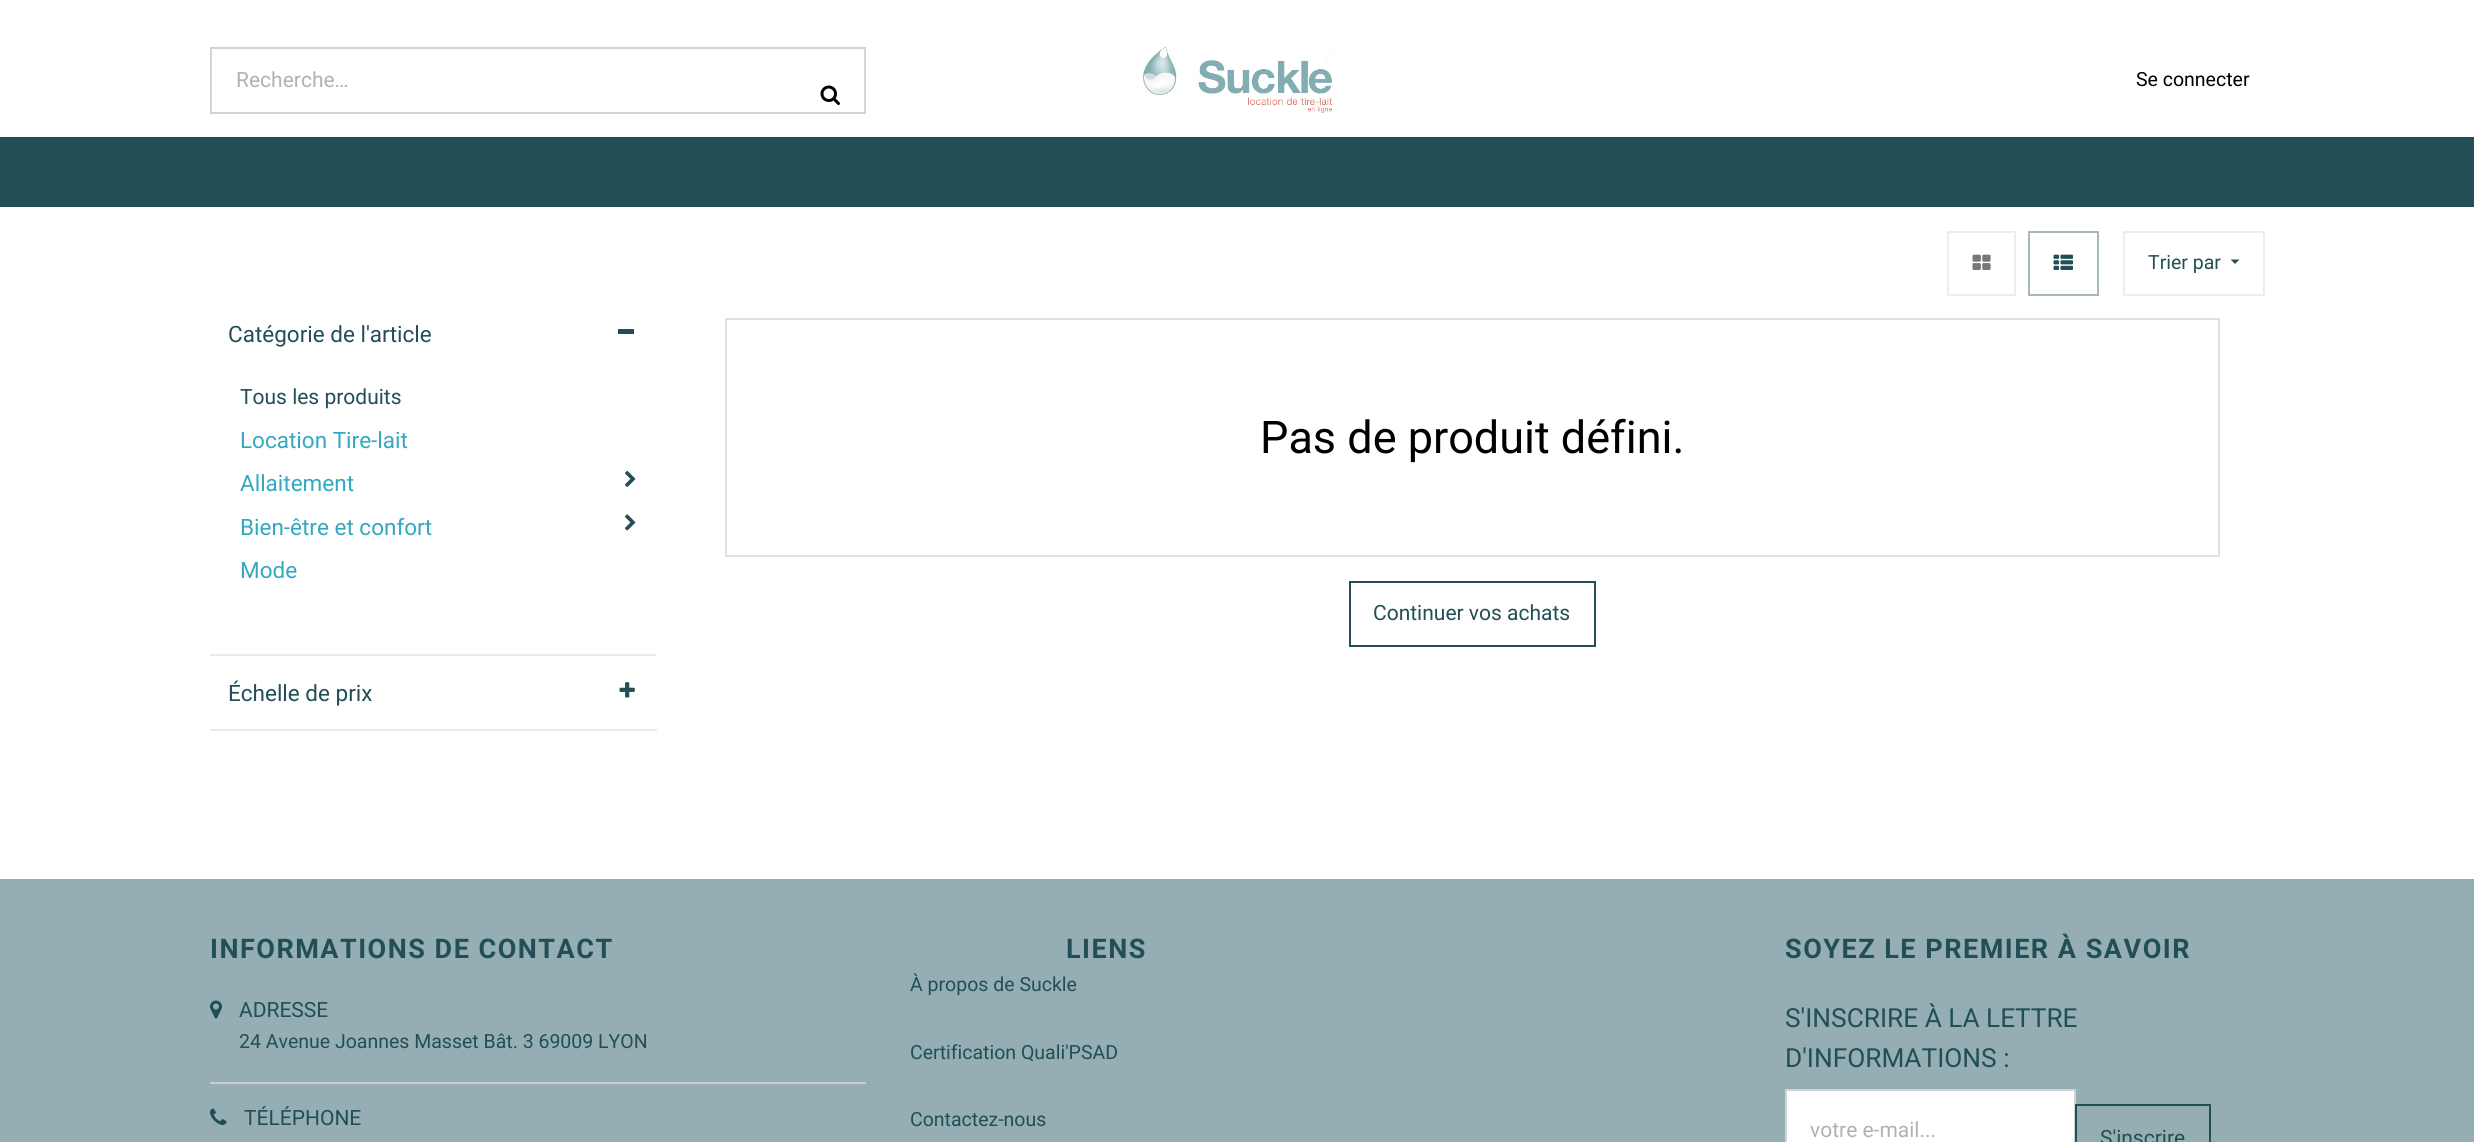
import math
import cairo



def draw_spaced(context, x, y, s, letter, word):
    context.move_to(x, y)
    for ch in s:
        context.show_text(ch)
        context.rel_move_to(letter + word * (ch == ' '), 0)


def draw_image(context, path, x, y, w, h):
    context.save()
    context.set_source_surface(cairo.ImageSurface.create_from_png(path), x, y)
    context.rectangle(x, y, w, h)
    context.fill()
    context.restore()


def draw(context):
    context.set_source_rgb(1, 1, 1)
    context.paint()
    context.rectangle(211, 48, 654, 65)
    context.set_source_rgb(206 / 255, 212 / 255, 218 / 255)
    context.stroke()
    draw_image(context, "images/1.png", 820, 85, 20, 20)
    draw_image(context, "images/2.png", 1143, 44, 190, 69)
    context.set_source_rgb(34 / 255, 78 / 255, 88 / 255)
    context.rectangle(0, 137, 2474, 70)
    context.fill()
    context.rectangle(1948, 232, 67, 63)
    context.set_source_rgb(237 / 255, 237 / 255, 237 / 255)
    context.stroke()
    draw_image(context, "images/3.png", 1972, 254, 19, 16)
    context.rectangle(2029, 232, 69, 63)
    context.set_source_rgb(167 / 255, 184 / 255, 188 / 255)
    context.stroke()
    draw_image(context, "images/4.png", 2053, 254, 20, 16)
    context.rectangle(2124, 232, 140, 63)
    context.set_source_rgb(237 / 255, 237 / 255, 237 / 255)
    context.stroke()
    context.set_source_rgb(34 / 255, 78 / 255, 88 / 255)
    context.new_path()
    context.move_to(2230.5, 259.5)
    context.line_to(2239.5, 259.5)
    context.line_to(2235, 264)
    context.close_path()
    context.fill()
    context.set_source_rgb(234 / 255, 234 / 255, 234 / 255)
    context.rectangle(210, 654, 446, 2)
    context.fill()
    context.set_source_rgb(34 / 255, 78 / 255, 88 / 255)
    context.rectangle(618, 329, 16, 5)
    context.fill()
    draw_image(context, "images/5.png", 624, 470, 12, 17)
    draw_image(context, "images/6.png", 624, 514, 12, 17)
    context.set_source_rgb(234 / 255, 234 / 255, 234 / 255)
    context.rectangle(210, 729, 447, 2)
    context.fill()
    draw_image(context, "images/7.png", 619, 682, 16, 16)
    context.rectangle(726, 319, 1493, 237)
    context.set_source_rgb(224 / 255, 224 / 255, 224 / 255)
    context.stroke()
    context.rectangle(1350, 582, 245, 64)
    context.set_source_rgb(34 / 255, 78 / 255, 88 / 255)
    context.stroke()
    context.set_source_rgb(148 / 255, 174 / 255, 180 / 255)
    context.rectangle(0, 879, 2474, 263)
    context.fill()
    draw_image(context, "images/8.png", 210, 1000, 12, 19)
    context.set_source_rgb(204 / 255, 204 / 255, 204 / 255)
    context.rectangle(210, 1082, 656, 2)
    context.fill()
    draw_image(context, "images/9.png", 210, 1108, 17, 17)
    context.set_source_rgb(1, 1, 1)
    context.rectangle(1786, 1090, 289, 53)
    context.fill_preserve()
    context.set_source_rgb(206 / 255, 212 / 255, 218 / 255)
    context.stroke()
    context.rectangle(2076, 1105, 134, 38)
    context.set_source_rgb(34 / 255, 78 / 255, 88 / 255)
    context.stroke()
    context.select_font_face("Roboto")
    context.set_font_size(21)
    context.set_source_rgb(177 / 255, 177 / 255, 177 / 255)
    context.move_to(236, 87)
    context.show_text("Recherche…")
    context.set_font_size(19.5)
    context.set_source_rgb(0, 0, 0)
    context.move_to(2136, 86)
    context.show_text("Se connecter")
    context.set_source_rgb(34 / 255, 78 / 255, 88 / 255)
    context.move_to(2148, 269)
    context.show_text("Trier par")
    context.set_font_size(22.5)
    context.move_to(228, 342)
    context.show_text("Catégorie de l'article")
    context.set_font_size(21)
    context.move_to(240, 404)
    context.show_text("Tous les produits")
    context.set_font_size(22.5)
    context.set_source_rgb(51 / 255, 168 / 255, 193 / 255)
    context.move_to(240, 448)
    context.show_text("Location Tire-lait")
    context.move_to(240, 491)
    context.show_text("Allaitement")
    context.move_to(240, 535)
    context.show_text("Bien-être et confort")
    context.move_to(240, 578)
    context.show_text("Mode")
    context.set_source_rgb(34 / 255, 78 / 255, 88 / 255)
    context.move_to(228, 701)
    context.show_text("Échelle de prix")
    context.set_font_size(45)
    context.set_source_rgb(0, 0, 0)
    context.move_to(1260, 453)
    context.show_text("Pas de produit défini.")
    context.set_font_size(21)
    context.set_source_rgb(34 / 255, 78 / 255, 88 / 255)
    context.move_to(1373, 620)
    context.show_text("Continuer vos achats")
    context.select_font_face("Roboto", cairo.FontSlant.NORMAL, cairo.FontWeight.BOLD)
    context.set_font_size(27)
    draw_spaced(context, 210, 958, "INFORMATIONS DE CONTACT", 1.5, 0)
    context.select_font_face("Roboto")
    context.set_font_size(21)
    context.move_to(239, 1017)
    context.show_text("ADRESSE")
    context.set_font_size(19.5)
    context.move_to(239, 1048)
    context.show_text("24 Avenue Joannes Masset Bât. 3 69009 LYON")
    context.set_font_size(21)
    context.move_to(244, 1125)
    context.show_text("TÉLÉPHONE")
    context.select_font_face("Roboto", cairo.FontSlant.NORMAL, cairo.FontWeight.BOLD)
    context.set_font_size(27)
    draw_spaced(context, 1066, 958, "LIENS", 1.5, 0)
    context.select_font_face("Roboto")
    context.set_font_size(19.5)
    context.move_to(910, 991)
    context.show_text("À propos de Suckle")
    context.move_to(910, 1059)
    context.show_text("Certification Quali'PSAD")
    context.move_to(910, 1126)
    context.show_text("Contactez-nous")
    context.select_font_face("Roboto", cairo.FontSlant.NORMAL, cairo.FontWeight.BOLD)
    context.set_font_size(27)
    draw_spaced(context, 1785, 958, "SOYEZ LE PREMIER À SAVOIR", 1.5, 0)
    context.select_font_face("Roboto")
    context.set_font_size(26.25)
    context.move_to(1785, 1027)
    context.show_text("S'INSCRIRE À LA LETTRE")
    context.move_to(1785, 1067)
    context.show_text("D'INFORMATIONS :")
    context.set_font_size(21)
    context.set_source_rgb(177 / 255, 177 / 255, 177 / 255)
    context.move_to(1810, 1137)
    context.show_text("votre e-mail...")
    context.set_source_rgb(34 / 255, 78 / 255, 88 / 255)
    context.move_to(2100, 1145)
    context.show_text("S'inscrire")


surface = cairo.ImageSurface(cairo.Format.RGB24, 2474, 1142)
context = cairo.Context(surface)
options = cairo.FontOptions()
options.set_hint_metrics(cairo.HintMetrics.OFF)
options.set_hint_style(cairo.HintStyle.NONE)
context.set_font_options(options)
context.set_miter_limit(4)
draw(context)
surface.write_to_png("out.png")
